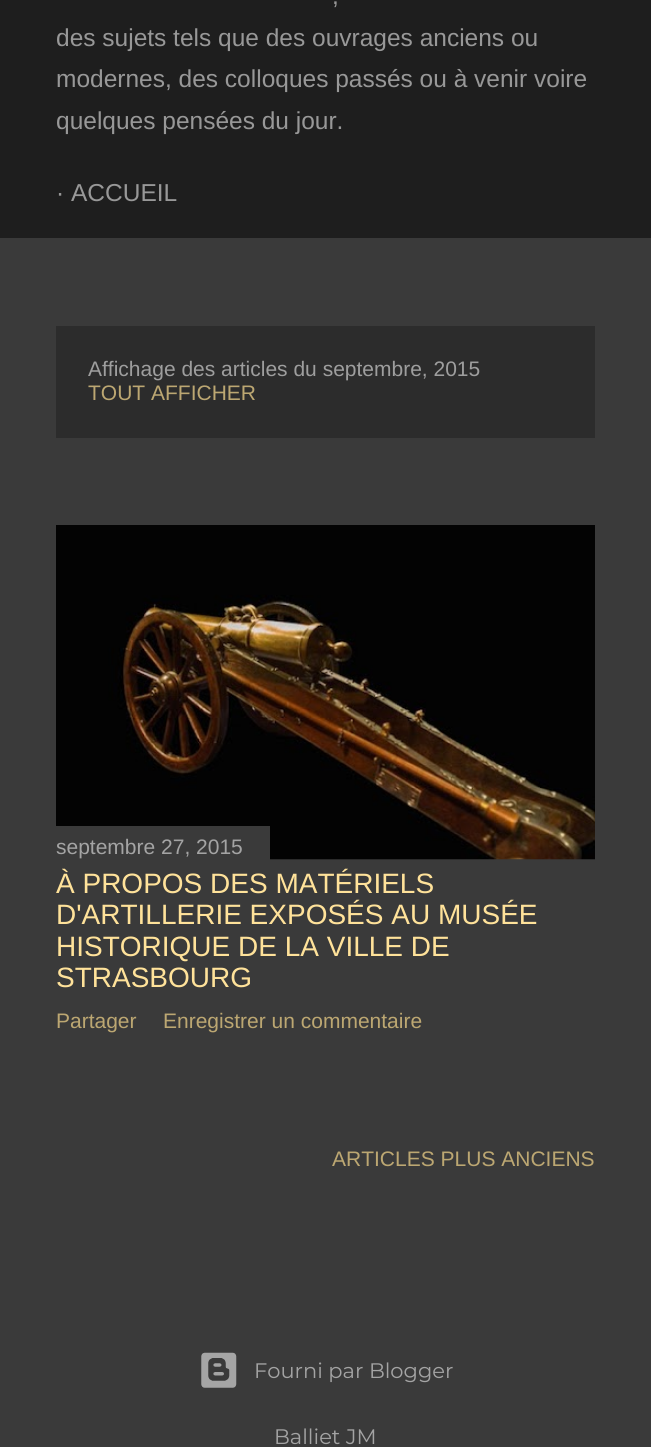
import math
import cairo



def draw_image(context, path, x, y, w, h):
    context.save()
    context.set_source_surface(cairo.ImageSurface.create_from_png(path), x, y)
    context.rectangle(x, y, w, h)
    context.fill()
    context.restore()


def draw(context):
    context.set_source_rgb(58 / 255, 58 / 255, 58 / 255)
    context.paint()
    context.set_source_rgb(30 / 255, 30 / 255, 30 / 255)
    context.rectangle(0, 0, 651, 238)
    context.fill()
    context.set_source_rgb(44 / 255, 44 / 255, 44 / 255)
    context.rectangle(56, 326, 539, 112)
    context.fill()
    draw_image(context, "images/1.png", 56, 525, 539, 335)
    context.set_source_rgb(58 / 255, 58 / 255, 58 / 255)
    context.rectangle(56, 826, 214, 34)
    context.fill()
    draw_image(context, "images/2.png", 201, 1352, 36, 36)
    context.select_font_face("Liberation Sans")
    context.set_font_size(24.5)
    context.set_source_rgb(152 / 255, 152 / 255, 152 / 255)
    context.move_to(332, 4)
    context.show_text(",")
    context.move_to(56, 46)
    context.show_text("des sujets tels que des ouvrages anciens ou")
    context.move_to(56, 87)
    context.show_text("modernes, des colloques passés ou à venir voire")
    context.move_to(56, 129)
    context.show_text("quelques pensées du jour.")
    context.move_to(56, 201)
    context.show_text("· ACCUEIL")
    context.set_font_size(21)
    context.set_source_rgb(158 / 255, 158 / 255, 158 / 255)
    context.move_to(88, 376)
    context.show_text("Affichage des articles du septembre, 2015")
    context.set_source_rgb(188 / 255, 167 / 255, 114 / 255)
    context.move_to(88, 400)
    context.show_text("TOUT AFFICHER")
    context.set_source_rgb(164 / 255, 164 / 255, 164 / 255)
    context.move_to(56, 854)
    context.show_text("septembre 27, 2015")
    context.set_font_size(28)
    context.set_source_rgb(1, 226 / 255, 154 / 255)
    context.move_to(56, 893)
    context.show_text("À PROPOS DES MATÉRIELS")
    context.move_to(56, 924)
    context.show_text("D'ARTILLERIE EXPOSÉS AU MUSÉE")
    context.move_to(56, 956)
    context.show_text("HISTORIQUE DE LA VILLE DE")
    context.move_to(56, 987)
    context.show_text("STRASBOURG")
    context.set_font_size(21)
    context.set_source_rgb(188 / 255, 167 / 255, 114 / 255)
    context.move_to(56, 1028)
    context.show_text("Partager")
    context.move_to(163, 1028)
    context.show_text("Enregistrer un commentaire")
    context.move_to(332, 1166)
    context.show_text("ARTICLES PLUS ANCIENS")
    context.select_font_face("Montserrat Thin")
    context.set_source_rgb(164 / 255, 164 / 255, 164 / 255)
    context.move_to(254, 1378)
    context.show_text("Fourni par Blogger")
    context.move_to(274, 1444)
    context.show_text("Balliet JM")


surface = cairo.ImageSurface(cairo.Format.RGB24, 651, 1447)
context = cairo.Context(surface)
options = cairo.FontOptions()
options.set_hint_metrics(cairo.HintMetrics.OFF)
options.set_hint_style(cairo.HintStyle.NONE)
context.set_font_options(options)
context.set_miter_limit(4)
draw(context)
surface.write_to_png("out.png")
